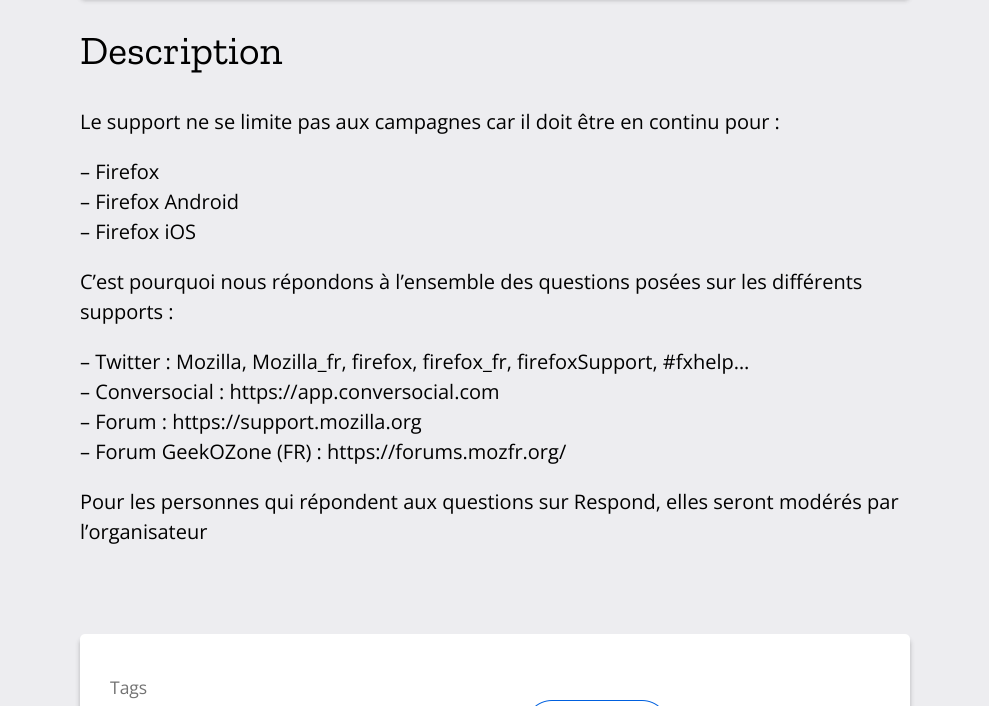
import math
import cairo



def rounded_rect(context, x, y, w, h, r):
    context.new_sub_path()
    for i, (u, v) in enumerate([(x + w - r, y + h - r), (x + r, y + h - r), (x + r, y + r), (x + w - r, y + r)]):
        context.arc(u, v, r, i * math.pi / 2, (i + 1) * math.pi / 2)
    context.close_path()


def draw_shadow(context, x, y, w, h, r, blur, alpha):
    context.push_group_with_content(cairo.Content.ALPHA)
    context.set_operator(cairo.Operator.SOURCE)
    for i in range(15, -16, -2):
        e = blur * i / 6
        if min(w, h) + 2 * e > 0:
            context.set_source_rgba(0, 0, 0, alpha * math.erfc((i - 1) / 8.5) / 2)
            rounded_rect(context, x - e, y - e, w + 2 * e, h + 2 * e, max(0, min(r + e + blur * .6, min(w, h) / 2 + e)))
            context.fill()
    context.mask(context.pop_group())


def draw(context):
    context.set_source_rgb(237 / 255, 237 / 255, 240 / 255)
    context.paint()
    context.set_source_rgb(0, 0, 0)
    draw_shadow(context, 80, -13, 830, 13, 5, 2.5, 0.25)
    draw_shadow(context, 80, 639, 830, 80, 5, 2.5, 0.25)
    context.set_source_rgb(1, 1, 1)
    rounded_rect(context, 80, 634, 830, 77, 5)
    context.fill()
    rounded_rect(context, 525.5, 700.5, 143, 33, 26.5)
    context.set_source_rgb(0, 96 / 255, 223 / 255)
    context.set_line_width(1)
    context.stroke()
    context.select_font_face("Zilla Slab")
    context.set_font_size(40)
    context.set_source_rgb(0, 0, 0)
    context.move_to(80, 64)
    context.show_text("Description")
    context.select_font_face("Open Sans")
    context.set_font_size(20)
    context.move_to(80, 129)
    context.show_text("Le support ne se limite pas aux campagnes car il doit être en continu pour :")
    context.move_to(80, 179)
    context.show_text("– Firefox")
    context.move_to(80, 209)
    context.show_text("– Firefox Android")
    context.move_to(80, 239)
    context.show_text("– Firefox iOS")
    context.move_to(80, 289)
    context.show_text("C’est pourquoi nous répondons à l’ensemble des questions posées sur les différents")
    context.move_to(80, 319)
    context.show_text("supports :")
    context.move_to(80, 369)
    context.show_text("– Twitter : Mozilla, Mozilla_fr, firefox, firefox_fr, firefoxSupport, #fxhelp…")
    context.move_to(80, 399)
    context.show_text("– Conversocial : https://app.conversocial.com")
    context.move_to(80, 429)
    context.show_text("– Forum : https://support.mozilla.org")
    context.move_to(80, 459)
    context.show_text("– Forum GeekOZone (FR) : https://forums.mozfr.org/")
    context.move_to(80, 509)
    context.show_text("Pour les personnes qui répondent aux questions sur Respond, elles seront modérés par")
    context.move_to(80, 539)
    context.show_text("l’organisateur")
    context.set_font_size(17.5)
    context.set_source_rgb(115 / 255, 115 / 255, 115 / 255)
    context.move_to(110, 694)
    context.show_text("Tags")


surface = cairo.ImageSurface(cairo.Format.RGB24, 989, 706)
context = cairo.Context(surface)
options = cairo.FontOptions()
options.set_hint_metrics(cairo.HintMetrics.OFF)
options.set_hint_style(cairo.HintStyle.NONE)
context.set_font_options(options)
context.set_miter_limit(4)
draw(context)
surface.write_to_png("out.png")
